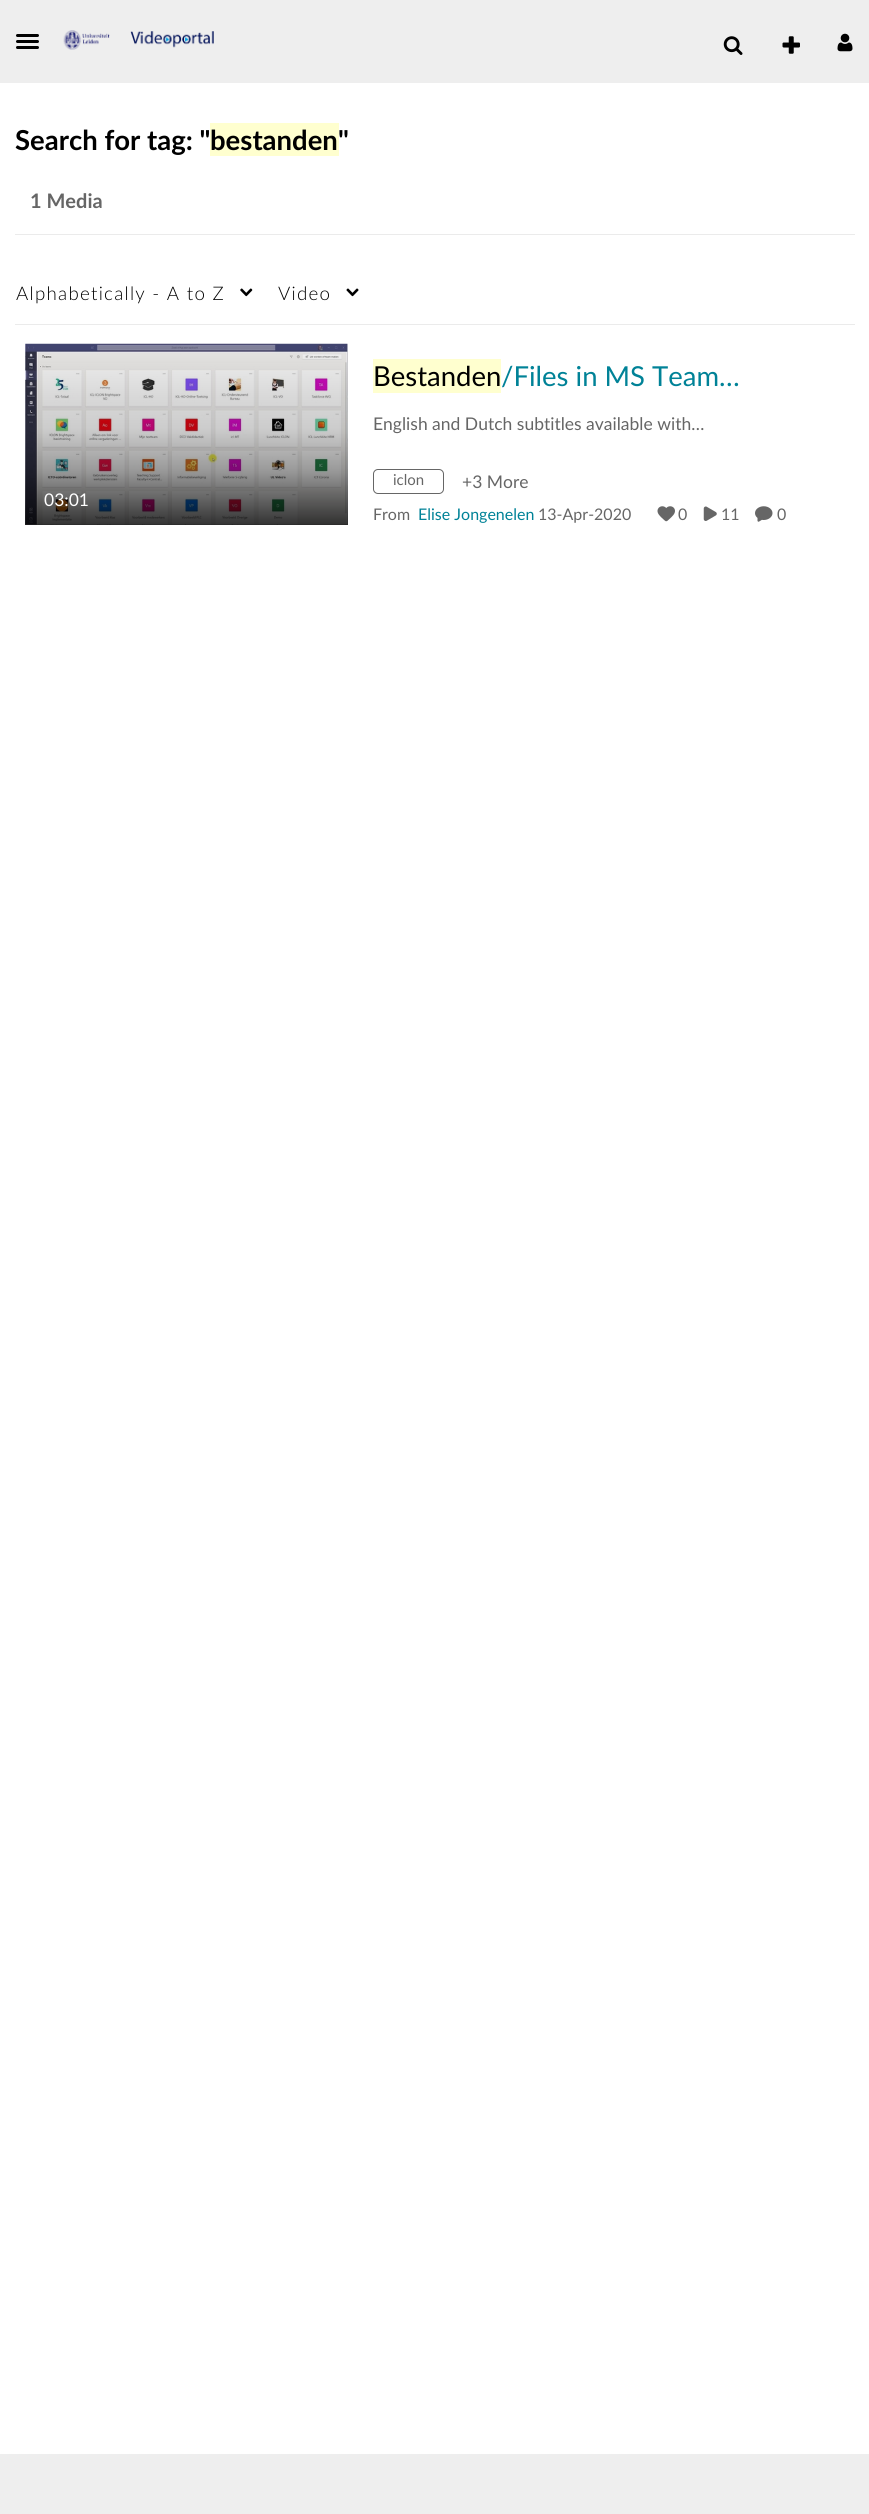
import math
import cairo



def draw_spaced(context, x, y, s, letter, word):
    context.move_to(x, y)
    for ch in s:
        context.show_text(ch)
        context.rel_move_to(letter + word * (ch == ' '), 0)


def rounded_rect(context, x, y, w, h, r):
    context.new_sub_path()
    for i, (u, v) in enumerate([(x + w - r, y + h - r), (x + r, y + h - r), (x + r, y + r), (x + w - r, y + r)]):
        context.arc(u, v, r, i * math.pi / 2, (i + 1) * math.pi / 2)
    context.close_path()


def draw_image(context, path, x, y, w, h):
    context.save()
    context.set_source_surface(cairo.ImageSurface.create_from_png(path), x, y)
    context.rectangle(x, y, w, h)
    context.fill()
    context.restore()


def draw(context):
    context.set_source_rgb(1, 1, 1)
    context.paint()
    context.set_source_rgb(238 / 255, 238 / 255, 238 / 255)
    context.rectangle(0, 0, 869, 83)
    context.fill()
    context.set_source_rgb(0, 0, 0)
    rounded_rect(context, 16, 34, 23, 3, 1.5)
    context.fill()
    rounded_rect(context, 16, 40, 23, 3, 1.5)
    context.fill()
    rounded_rect(context, 16, 46, 23, 3, 1.5)
    context.fill()
    draw_image(context, "images/1.png", 63, 30, 151, 20)
    draw_image(context, "images/2.png", 723, 36, 20, 19)
    draw_image(context, "images/3.png", 782, 36, 18, 18)
    draw_image(context, "images/4.png", 837, 33, 16, 19)
    context.set_source_rgb(1, 1, 207 / 255)
    context.rectangle(210, 123, 129, 33)
    context.fill()
    context.set_source_rgb(235 / 255, 235 / 255, 235 / 255)
    context.rectangle(15, 234, 840, 1)
    context.fill()
    draw_image(context, "images/5.png", 240, 288, 13, 9)
    draw_image(context, "images/6.png", 346, 288, 13, 9)
    draw_image(context, "images/7.png", 25, 343, 323, 182)
    gradient = cairo.LinearGradient(186, 525, 186, 344)
    gradient.add_color_stop_rgba(0, 0, 0, 0, 0.8)
    gradient.add_color_stop_rgba(0.3, 0, 0, 0, 0.4)
    gradient.add_color_stop_rgba(0.53, 0, 0, 0, 0.2)
    gradient.add_color_stop_rgba(0.71, 0, 0, 0, 0.15)
    gradient.add_color_stop_rgba(1, 0, 0, 0, 0.05)
    context.set_source(gradient)
    context.rectangle(25, 344, 323, 181)
    context.fill()
    context.set_source_rgb(235 / 255, 235 / 255, 235 / 255)
    context.rectangle(15, 324, 840, 1)
    context.fill()
    context.set_source_rgb(1, 1, 207 / 255)
    context.rectangle(373, 359, 128, 34)
    context.fill()
    rounded_rect(context, 373.5, 469.5, 70, 24, 4.5)
    context.set_source_rgb(102 / 255, 102 / 255, 102 / 255)
    context.set_line_width(1)
    context.stroke()
    draw_image(context, "images/8.png", 657, 506, 18, 16)
    draw_image(context, "images/9.png", 703, 506, 14, 15)
    draw_image(context, "images/10.png", 755, 506, 18, 16)
    context.set_source_rgb(238 / 255, 238 / 255, 238 / 255)
    context.rectangle(0, 2454, 869, 60)
    context.fill()
    context.select_font_face("Lato", cairo.FontSlant.NORMAL, cairo.FontWeight.BOLD)
    context.set_font_size(27.5)
    context.set_source_rgb(0, 0, 0)
    context.move_to(15, 150)
    context.show_text("Search for tag: \"")
    context.move_to(210, 150)
    context.show_text("bestanden\"")
    context.set_font_size(20)
    context.set_source_rgb(102 / 255, 102 / 255, 102 / 255)
    context.move_to(30, 208)
    context.show_text("1 Media")
    context.select_font_face("Lato Light")
    context.set_font_size(18.75)
    context.set_source_rgb(0, 0, 0)
    draw_spaced(context, 16, 300, "Alphabetically - A to Z", 1.25, 0)
    draw_spaced(context, 278, 300, "Video", 1.25, 0)
    context.select_font_face("Lato")
    context.set_font_size(17.5)
    context.set_source_rgb(1, 1, 1)
    context.move_to(44, 506)
    context.show_text("03:01")
    context.set_font_size(27.5)
    context.set_source_rgb(0, 0, 0)
    context.move_to(373, 386)
    context.show_text("Bestanden")
    context.set_source_rgb(0, 130 / 255, 151 / 255)
    context.move_to(501, 386)
    context.show_text("/Files in MS Team…")
    context.set_font_size(17.5)
    context.set_source_rgb(102 / 255, 102 / 255, 102 / 255)
    context.move_to(373, 430)
    context.show_text("English and Dutch subtitles available with…")
    context.set_font_size(15)
    context.move_to(393, 485)
    context.show_text("iclon")
    context.set_font_size(17.5)
    context.move_to(462, 488)
    context.show_text("+3 More")
    context.set_font_size(16)
    context.move_to(373, 520)
    context.show_text("From")
    context.set_source_rgb(0, 130 / 255, 151 / 255)
    context.move_to(418, 520)
    context.show_text("Elise Jongenelen")
    context.set_source_rgb(102 / 255, 102 / 255, 102 / 255)
    context.move_to(538, 520)
    context.show_text("13-Apr-2020")
    context.move_to(678, 520)
    context.show_text("0")
    context.move_to(721, 520)
    context.show_text("11")
    context.move_to(777, 520)
    context.show_text("0")


surface = cairo.ImageSurface(cairo.Format.RGB24, 869, 2514)
context = cairo.Context(surface)
options = cairo.FontOptions()
options.set_hint_metrics(cairo.HintMetrics.OFF)
options.set_hint_style(cairo.HintStyle.NONE)
context.set_font_options(options)
context.set_miter_limit(4)
draw(context)
surface.write_to_png("out.png")
